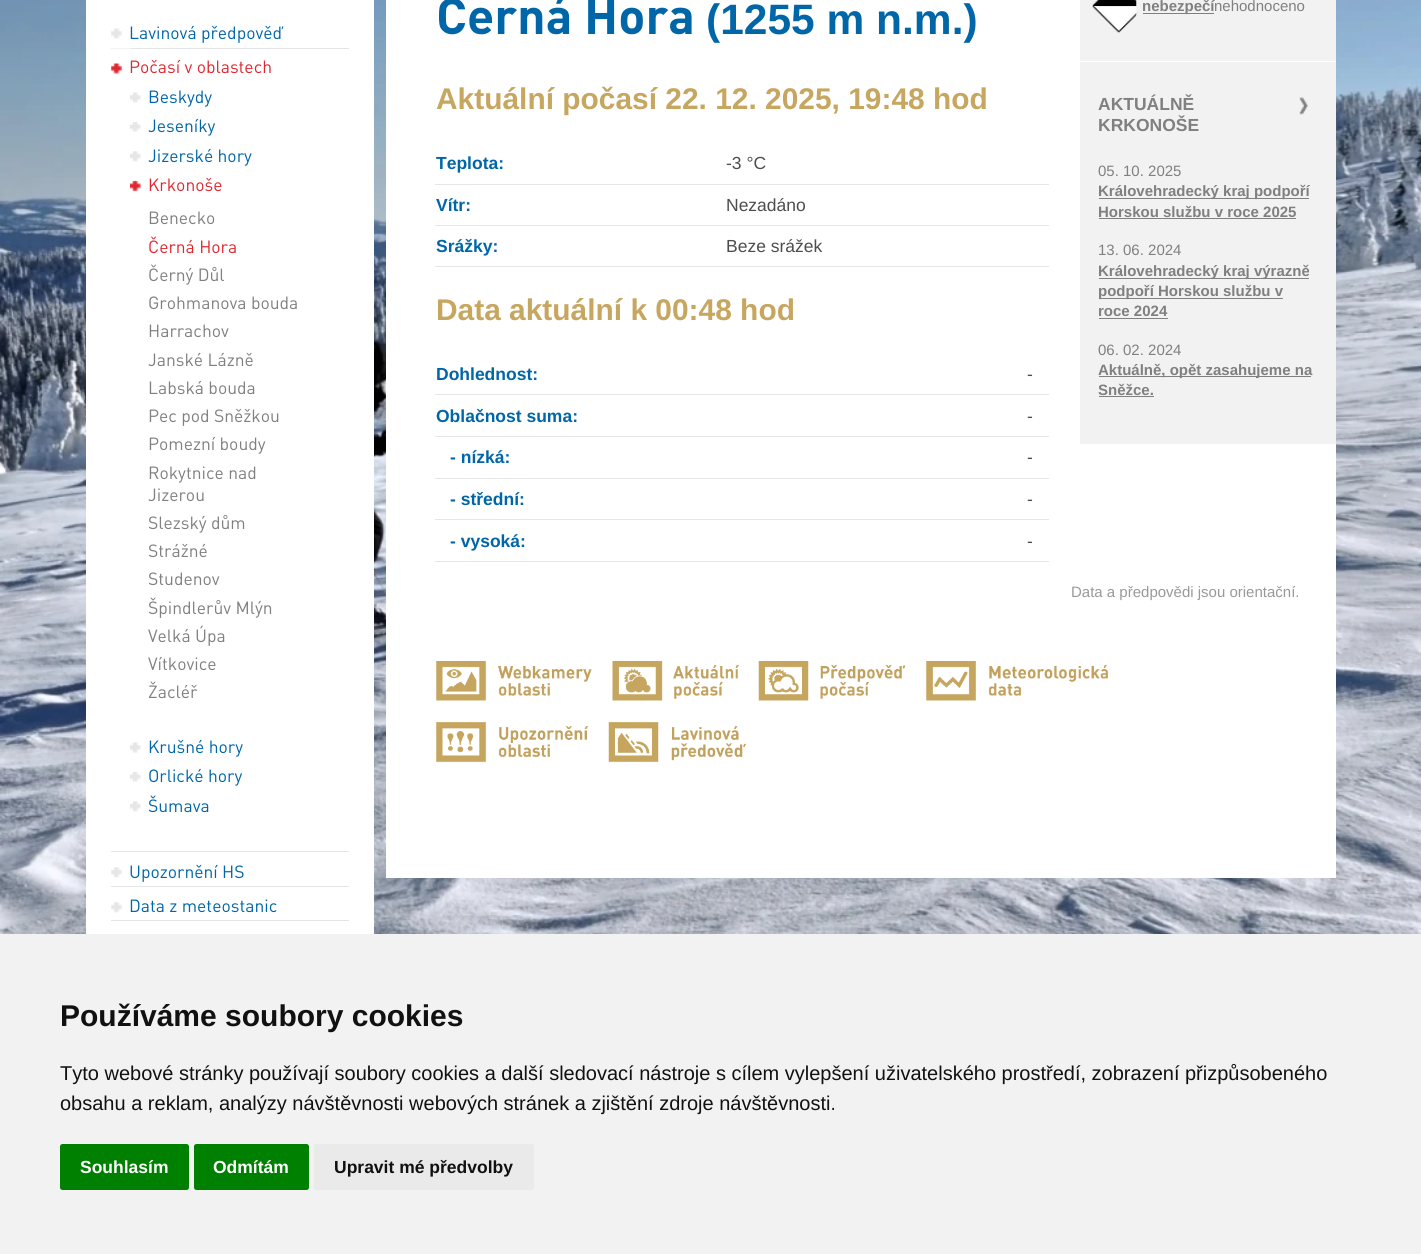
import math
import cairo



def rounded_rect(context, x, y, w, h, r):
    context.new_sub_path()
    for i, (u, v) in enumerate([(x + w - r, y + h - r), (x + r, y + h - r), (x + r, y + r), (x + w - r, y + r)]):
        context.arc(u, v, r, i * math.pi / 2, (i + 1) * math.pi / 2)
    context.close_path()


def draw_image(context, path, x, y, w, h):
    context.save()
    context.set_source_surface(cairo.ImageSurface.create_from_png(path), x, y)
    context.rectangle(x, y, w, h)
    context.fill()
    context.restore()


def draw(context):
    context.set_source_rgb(1, 1, 1)
    context.paint()
    draw_image(context, "images/1.png", 0, 0, 1421, 934)
    context.set_source_rgb(1, 1, 1)
    context.rectangle(86, 0, 288, 934)
    context.fill()
    draw_image(context, "images/2.png", 111, 28, 11, 11)
    context.set_source_rgb(229 / 255, 229 / 255, 229 / 255)
    context.rectangle(111, 48, 238, 1)
    context.fill()
    draw_image(context, "images/3.png", 111, 48, 20, 26)
    context.rectangle(111, 851, 238, 1)
    context.fill()
    draw_image(context, "images/4.png", 130, 92, 11, 11)
    draw_image(context, "images/5.png", 130, 122, 11, 10)
    draw_image(context, "images/6.png", 130, 151, 11, 11)
    draw_image(context, "images/7.png", 130, 180, 11, 12)
    draw_image(context, "images/4.png", 130, 742, 11, 11)
    draw_image(context, "images/5.png", 130, 772, 11, 10)
    draw_image(context, "images/6.png", 130, 801, 11, 11)
    draw_image(context, "images/8.png", 111, 867, 11, 11)
    context.rectangle(111, 886, 238, 1)
    context.fill()
    draw_image(context, "images/8.png", 111, 902, 11, 11)
    context.rectangle(111, 920, 238, 1)
    context.fill()
    context.set_source_rgb(1, 1, 1)
    context.rectangle(386, 0, 950, 878)
    context.fill()
    context.set_source_rgb(242 / 255, 242 / 255, 242 / 255)
    context.rectangle(1080, 0, 256, 444)
    context.fill()
    context.set_source_rgb(1, 1, 1)
    context.rectangle(1080, 61, 256, 1)
    context.fill()
    draw_image(context, "images/9.png", 1092, 0, 45, 33)
    context.set_source_rgb(128 / 255, 128 / 255, 128 / 255)
    context.rectangle(1143, 13, 71, 1)
    context.fill()
    draw_image(context, "images/10.png", 1299, 97, 9, 18)
    context.rectangle(1099, 198, 210, 1)
    context.fill()
    context.rectangle(1099, 218, 197, 1)
    context.fill()
    context.rectangle(1099, 278, 210, 1)
    context.fill()
    context.rectangle(1099, 298, 184, 1)
    context.fill()
    context.rectangle(1099, 318, 69, 1)
    context.fill()
    context.rectangle(1099, 376, 212, 1)
    context.fill()
    context.rectangle(1099, 396, 55, 1)
    context.fill()
    context.set_source_rgb(230 / 255, 230 / 255, 230 / 255)
    context.rectangle(435, 184, 614, 1)
    context.fill()
    context.rectangle(435, 225, 614, 1)
    context.fill()
    context.rectangle(435, 266, 614, 1)
    context.fill()
    context.rectangle(435, 394, 614, 1)
    context.fill()
    context.rectangle(435, 436, 614, 1)
    context.fill()
    context.rectangle(435, 478, 614, 1)
    context.fill()
    context.rectangle(435, 519, 614, 1)
    context.fill()
    context.rectangle(435, 561, 614, 1)
    context.fill()
    draw_image(context, "images/11.png", 436, 661, 156, 40)
    draw_image(context, "images/12.png", 612, 661, 128, 40)
    draw_image(context, "images/13.png", 758, 661, 148, 40)
    draw_image(context, "images/14.png", 926, 661, 182, 40)
    draw_image(context, "images/15.png", 436, 722, 152, 41)
    draw_image(context, "images/16.png", 608, 722, 138, 41)
    context.set_source_rgb(242 / 255, 242 / 255, 242 / 255)
    context.rectangle(0, 934, 1421, 320)
    context.fill()
    context.set_source_rgb(0, 128 / 255, 0)
    rounded_rect(context, 60, 1144, 129, 46, 2.5)
    context.fill()
    rounded_rect(context, 194, 1144, 115, 46, 2.5)
    context.fill()
    context.set_source_rgb(234 / 255, 234 / 255, 234 / 255)
    rounded_rect(context, 314, 1144, 220, 46, 2.5)
    context.fill()
    context.select_font_face("DIN")
    context.set_font_size(17.5)
    context.set_source_rgb(0, 102 / 255, 167 / 255)
    context.move_to(129, 39)
    context.show_text("Lavinová předpověď")
    context.set_source_rgb(222 / 255, 39 / 255, 48 / 255)
    context.move_to(129, 73)
    context.show_text("Počasí v oblastech")
    context.set_source_rgb(0, 102 / 255, 167 / 255)
    context.move_to(148, 103)
    context.show_text("Beskydy")
    context.move_to(148, 132)
    context.show_text("Jeseníky")
    context.move_to(148, 162)
    context.show_text("Jizerské hory")
    context.set_source_rgb(222 / 255, 39 / 255, 48 / 255)
    context.move_to(148, 191)
    context.show_text("Krkonoše")
    context.set_source_rgb(128 / 255, 128 / 255, 128 / 255)
    context.move_to(148, 224)
    context.show_text("Benecko")
    context.set_source_rgb(222 / 255, 39 / 255, 48 / 255)
    context.move_to(148, 253)
    context.show_text("Černá Hora")
    context.set_source_rgb(128 / 255, 128 / 255, 128 / 255)
    context.move_to(148, 281)
    context.show_text("Černý Důl")
    context.move_to(148, 309)
    context.show_text("Grohmanova bouda")
    context.move_to(148, 337)
    context.show_text("Harrachov")
    context.move_to(148, 366)
    context.show_text("Janské Lázně")
    context.move_to(148, 394)
    context.show_text("Labská bouda")
    context.move_to(148, 422)
    context.show_text("Pec pod Sněžkou")
    context.move_to(148, 450)
    context.show_text("Pomezní boudy")
    context.move_to(148, 479)
    context.show_text("Rokytnice nad")
    context.move_to(148, 501)
    context.show_text("Jizerou")
    context.move_to(148, 529)
    context.show_text("Slezský dům")
    context.move_to(148, 557)
    context.show_text("Strážné")
    context.move_to(148, 585)
    context.show_text("Studenov")
    context.move_to(148, 614)
    context.show_text("Špindlerův Mlýn")
    context.move_to(148, 642)
    context.show_text("Velká Úpa")
    context.move_to(148, 670)
    context.show_text("Vítkovice")
    context.move_to(148, 698)
    context.show_text("Žacléř")
    context.set_source_rgb(0, 102 / 255, 167 / 255)
    context.move_to(148, 753)
    context.show_text("Krušné hory")
    context.move_to(148, 782)
    context.show_text("Orlické hory")
    context.move_to(148, 812)
    context.show_text("Šumava")
    context.move_to(129, 878)
    context.show_text("Upozornění HS")
    context.move_to(129, 912)
    context.show_text("Data z meteostanic")
    context.select_font_face("DIN", cairo.FontSlant.NORMAL, cairo.FontWeight.BOLD)
    context.set_font_size(50)
    context.move_to(436, 34)
    context.show_text("Černá Hora")
    context.select_font_face("Liberation Sans", cairo.FontSlant.NORMAL, cairo.FontWeight.BOLD)
    context.set_font_size(42.5)
    context.move_to(706, 34)
    context.show_text("(1255 m n.m.)")
    context.save()
    context.rectangle(1143, 0, 175, 16)
    context.clip()
    context.set_font_size(15)
    context.set_source_rgb(128 / 255, 128 / 255, 128 / 255)
    context.move_to(1142, 11)
    context.show_text("nebezpečí")
    context.restore()
    context.select_font_face("Liberation Sans")
    context.set_font_size(15)
    context.set_source_rgb(128 / 255, 128 / 255, 128 / 255)
    context.move_to(1214, 11)
    context.show_text("nehodnoceno")
    context.select_font_face("Liberation Sans", cairo.FontSlant.NORMAL, cairo.FontWeight.BOLD)
    context.set_font_size(17.5)
    context.move_to(1098, 110)
    context.show_text("AKTUÁLNĚ")
    context.move_to(1098, 131)
    context.show_text("KRKONOŠE")
    context.select_font_face("Liberation Sans")
    context.set_font_size(15)
    context.move_to(1098, 176)
    context.show_text("05. 10. 2025")
    context.select_font_face("Liberation Sans", cairo.FontSlant.NORMAL, cairo.FontWeight.BOLD)
    context.move_to(1098, 196)
    context.show_text("Královehradecký kraj podpoří")
    context.move_to(1098, 217)
    context.show_text("Horskou službu v roce 2025")
    context.select_font_face("Liberation Sans")
    context.move_to(1098, 255)
    context.show_text("13. 06. 2024")
    context.select_font_face("Liberation Sans", cairo.FontSlant.NORMAL, cairo.FontWeight.BOLD)
    context.move_to(1098, 276)
    context.show_text("Královehradecký kraj výrazně")
    context.move_to(1098, 296)
    context.show_text("podpoří Horskou službu v")
    context.move_to(1098, 316)
    context.show_text("roce 2024")
    context.select_font_face("Liberation Sans")
    context.move_to(1098, 355)
    context.show_text("06. 02. 2024")
    context.select_font_face("Liberation Sans", cairo.FontSlant.NORMAL, cairo.FontWeight.BOLD)
    context.move_to(1098, 375)
    context.show_text("Aktuálně, opět zasahujeme na")
    context.move_to(1098, 395)
    context.show_text("Sněžce.")
    context.set_font_size(29.9)
    context.set_source_rgb(199 / 255, 166 / 255, 96 / 255)
    context.move_to(436, 109)
    context.show_text("Aktuální počasí 22. 12. 2025, 19:48 hod")
    context.set_font_size(17.5)
    context.set_source_rgb(0, 102 / 255, 167 / 255)
    context.move_to(436, 169)
    context.show_text("Teplota:")
    context.select_font_face("Liberation Sans")
    context.set_source_rgb(77 / 255, 77 / 255, 77 / 255)
    context.move_to(726, 169)
    context.show_text("-3 °C")
    context.select_font_face("Liberation Sans", cairo.FontSlant.NORMAL, cairo.FontWeight.BOLD)
    context.set_source_rgb(0, 102 / 255, 167 / 255)
    context.move_to(436, 211)
    context.show_text("Vítr:")
    context.select_font_face("Liberation Sans")
    context.set_source_rgb(77 / 255, 77 / 255, 77 / 255)
    context.move_to(726, 211)
    context.show_text("Nezadáno")
    context.select_font_face("Liberation Sans", cairo.FontSlant.NORMAL, cairo.FontWeight.BOLD)
    context.set_source_rgb(0, 102 / 255, 167 / 255)
    context.move_to(436, 252)
    context.show_text("Srážky:")
    context.select_font_face("Liberation Sans")
    context.set_source_rgb(77 / 255, 77 / 255, 77 / 255)
    context.move_to(726, 252)
    context.show_text("Beze srážek")
    context.select_font_face("Liberation Sans", cairo.FontSlant.NORMAL, cairo.FontWeight.BOLD)
    context.set_font_size(29.9)
    context.set_source_rgb(199 / 255, 166 / 255, 96 / 255)
    context.move_to(436, 320)
    context.show_text("Data aktuální k 00:48 hod")
    context.set_font_size(17.5)
    context.set_source_rgb(0, 102 / 255, 167 / 255)
    context.move_to(436, 380)
    context.show_text("Dohlednost:")
    context.select_font_face("Liberation Sans")
    context.set_source_rgb(77 / 255, 77 / 255, 77 / 255)
    context.move_to(1027, 380)
    context.show_text("-")
    context.select_font_face("Liberation Sans", cairo.FontSlant.NORMAL, cairo.FontWeight.BOLD)
    context.set_source_rgb(0, 102 / 255, 167 / 255)
    context.move_to(436, 422)
    context.show_text("Oblačnost suma:")
    context.select_font_face("Liberation Sans")
    context.set_source_rgb(77 / 255, 77 / 255, 77 / 255)
    context.move_to(1027, 422)
    context.show_text("-")
    context.select_font_face("Liberation Sans", cairo.FontSlant.NORMAL, cairo.FontWeight.BOLD)
    context.set_source_rgb(0, 102 / 255, 167 / 255)
    context.move_to(450, 463)
    context.show_text("- nízká:")
    context.select_font_face("Liberation Sans")
    context.set_source_rgb(77 / 255, 77 / 255, 77 / 255)
    context.move_to(1027, 463)
    context.show_text("-")
    context.select_font_face("Liberation Sans", cairo.FontSlant.NORMAL, cairo.FontWeight.BOLD)
    context.set_source_rgb(0, 102 / 255, 167 / 255)
    context.move_to(450, 505)
    context.show_text("- střední:")
    context.select_font_face("Liberation Sans")
    context.set_source_rgb(77 / 255, 77 / 255, 77 / 255)
    context.move_to(1027, 505)
    context.show_text("-")
    context.select_font_face("Liberation Sans", cairo.FontSlant.NORMAL, cairo.FontWeight.BOLD)
    context.set_source_rgb(0, 102 / 255, 167 / 255)
    context.move_to(450, 547)
    context.show_text("- vysoká:")
    context.select_font_face("Liberation Sans")
    context.set_source_rgb(77 / 255, 77 / 255, 77 / 255)
    context.move_to(1027, 547)
    context.show_text("-")
    context.set_font_size(15)
    context.set_source_rgb(153 / 255, 153 / 255, 153 / 255)
    context.move_to(1071, 597)
    context.show_text("Data a předpovědi jsou orientační.")
    context.select_font_face("Liberation Sans", cairo.FontSlant.NORMAL, cairo.FontWeight.BOLD)
    context.set_font_size(30)
    context.set_source_rgb(17 / 255, 17 / 255, 17 / 255)
    context.move_to(60, 1026)
    context.show_text("Používáme soubory cookies")
    context.select_font_face("Liberation Sans")
    context.set_font_size(20)
    context.move_to(60, 1080)
    context.show_text("Tyto webové stránky používají soubory cookies a další sledovací nástroje s cílem vylepšení uživatelského prostředí, zobrazení přizpůsobeného")
    context.move_to(60, 1110)
    context.show_text("obsahu a reklam, analýzy návštěvnosti webových stránek a zjištění zdroje návštěvnosti.")
    context.select_font_face("Liberation Sans", cairo.FontSlant.NORMAL, cairo.FontWeight.BOLD)
    context.set_font_size(17.5)
    context.set_source_rgb(1, 1, 1)
    context.move_to(80, 1173)
    context.show_text("Souhlasím")
    context.move_to(213, 1173)
    context.show_text("Odmítám")
    context.set_source_rgb(17 / 255, 17 / 255, 17 / 255)
    context.move_to(334, 1173)
    context.show_text("Upravit mé předvolby")


surface = cairo.ImageSurface(cairo.Format.RGB24, 1421, 1254)
context = cairo.Context(surface)
options = cairo.FontOptions()
options.set_hint_metrics(cairo.HintMetrics.OFF)
options.set_hint_style(cairo.HintStyle.NONE)
context.set_font_options(options)
context.set_miter_limit(4)
draw(context)
surface.write_to_png("out.png")
